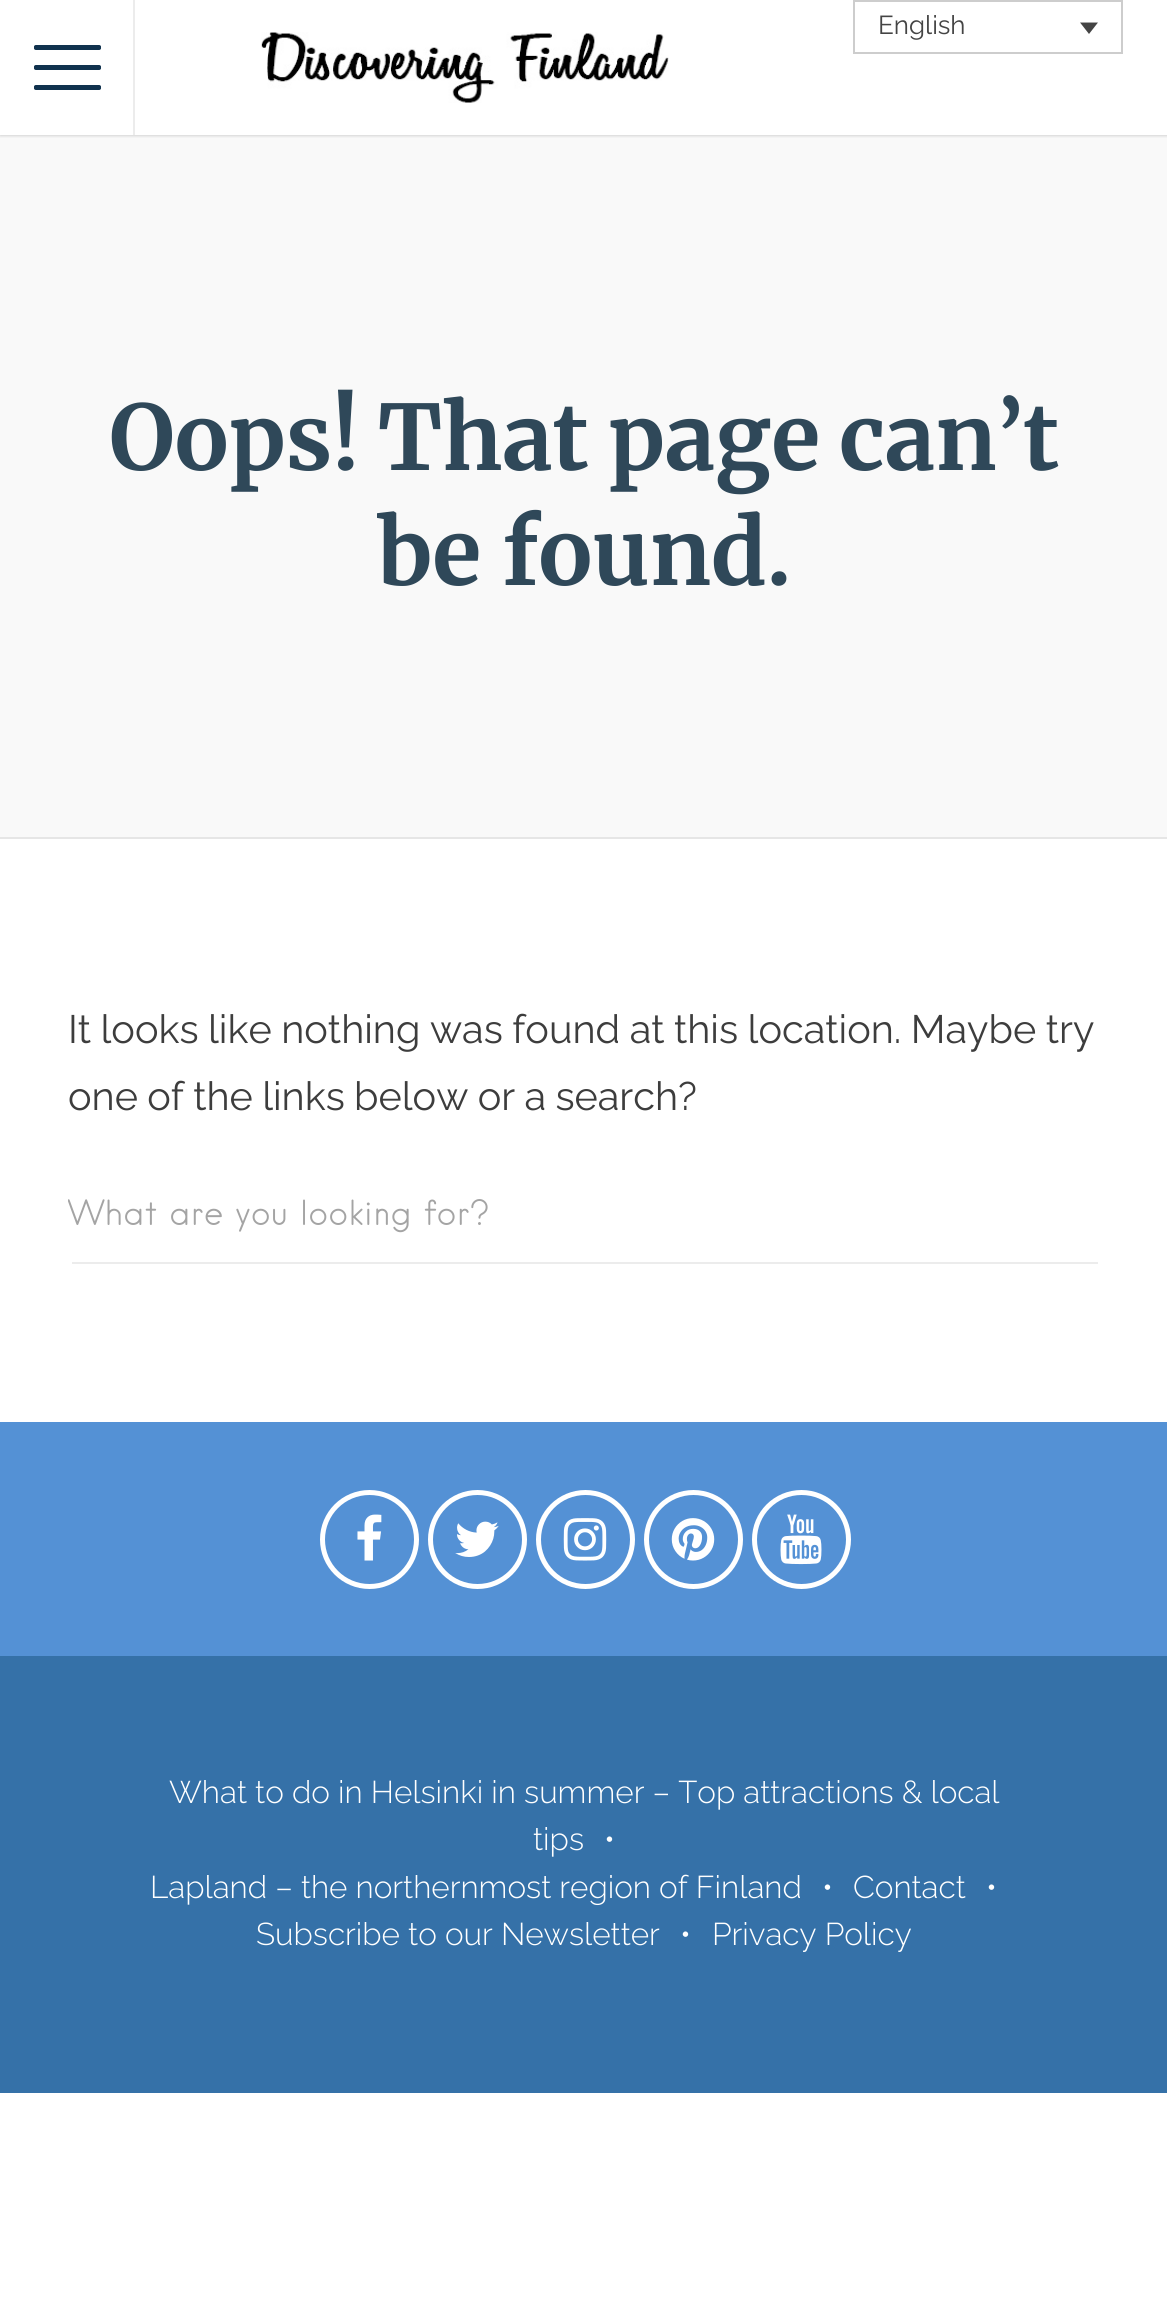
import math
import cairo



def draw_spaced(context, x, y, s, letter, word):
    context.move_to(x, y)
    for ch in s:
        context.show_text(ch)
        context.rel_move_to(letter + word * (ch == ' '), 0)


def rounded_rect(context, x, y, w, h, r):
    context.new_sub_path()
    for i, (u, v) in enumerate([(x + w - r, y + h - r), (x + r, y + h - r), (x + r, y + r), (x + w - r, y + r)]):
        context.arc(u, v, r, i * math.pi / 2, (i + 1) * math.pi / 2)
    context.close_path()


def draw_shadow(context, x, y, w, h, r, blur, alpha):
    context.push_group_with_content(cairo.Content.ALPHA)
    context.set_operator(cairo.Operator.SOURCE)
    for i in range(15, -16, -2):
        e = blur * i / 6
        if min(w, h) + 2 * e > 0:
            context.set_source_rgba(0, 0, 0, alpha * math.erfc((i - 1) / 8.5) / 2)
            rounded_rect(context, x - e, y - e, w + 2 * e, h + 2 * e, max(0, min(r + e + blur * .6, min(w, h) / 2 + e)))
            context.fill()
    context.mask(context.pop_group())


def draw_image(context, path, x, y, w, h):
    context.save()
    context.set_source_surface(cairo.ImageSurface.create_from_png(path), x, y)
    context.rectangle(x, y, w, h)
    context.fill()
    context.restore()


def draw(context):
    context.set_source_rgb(1, 1, 1)
    context.paint()
    context.set_source_rgb(249 / 255, 249 / 255, 249 / 255)
    context.rectangle(0, 135, 1167, 702)
    context.fill()
    context.save()
    context.rectangle(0, 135, 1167, 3)
    context.clip()
    context.set_source_rgb(0, 0, 0)
    draw_shadow(context, 0, 0, 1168, 135, 0, 2, 0.25)
    context.restore()
    context.set_source_rgb(236 / 255, 236 / 255, 236 / 255)
    context.rectangle(133, 0, 2, 135)
    context.fill()
    draw_image(context, "images/1.png", 34, 45, 67, 45)
    context.rectangle(854, 1, 268, 52)
    context.set_source_rgb(205 / 255, 205 / 255, 205 / 255)
    context.stroke()
    context.set_source_rgb(68 / 255, 68 / 255, 68 / 255)
    context.new_path()
    context.move_to(1080, 22.5)
    context.line_to(1098, 22.5)
    context.line_to(1089, 34)
    context.close_path()
    context.fill()
    draw_image(context, "images/2.png", 261, 32, 408, 71)
    context.set_source_rgb(230 / 255, 230 / 255, 230 / 255)
    context.rectangle(0, 837, 1167, 2)
    context.fill()
    context.set_source_rgb(236 / 255, 236 / 255, 236 / 255)
    context.rectangle(72, 1262, 1026, 2)
    context.fill()
    context.set_source_rgb(53 / 255, 113 / 255, 168 / 255)
    context.rectangle(0, 1656, 1167, 437)
    context.fill()
    context.set_source_rgb(84 / 255, 145 / 255, 213 / 255)
    context.rectangle(0, 1422, 1167, 234)
    context.fill()
    context.arc(369.5, 1539.5, 47, 0, 2 * math.pi)
    context.set_source_rgb(1, 1, 1)
    context.set_line_width(5)
    context.stroke()
    draw_image(context, "images/3.png", 357, 1514, 25, 47)
    context.arc(477.5, 1539.5, 47, 0, 2 * math.pi)
    context.stroke()
    draw_image(context, "images/4.png", 455, 1521, 44, 36)
    context.arc(585.5, 1539.5, 47, 0, 2 * math.pi)
    context.stroke()
    draw_image(context, "images/5.png", 563, 1518, 44, 43)
    context.arc(693.5, 1539.5, 47, 0, 2 * math.pi)
    context.stroke()
    draw_image(context, "images/6.png", 671, 1518, 44, 43)
    context.arc(801.5, 1539.5, 47, 0, 2 * math.pi)
    context.stroke()
    draw_image(context, "images/7.png", 780, 1514, 42, 51)
    context.select_font_face("Raleway")
    context.set_font_size(26)
    context.set_source_rgb(68 / 255, 68 / 255, 68 / 255)
    context.move_to(878, 34)
    context.show_text("English")
    context.select_font_face("Merriweather", cairo.FontSlant.NORMAL, cairo.FontWeight.BOLD)
    context.set_font_size(90)
    context.set_source_rgb(47 / 255, 72 / 255, 89 / 255)
    draw_spaced(context, 109, 470, "Oops! That page can’t", 0, -2.5)
    context.move_to(377, 585)
    context.show_text("be found.")
    context.select_font_face("Raleway")
    context.set_font_size(39.6)
    context.set_source_rgb(61 / 255, 61 / 255, 61 / 255)
    draw_spaced(context, 68, 1043, "It looks like nothing was found at this location. Maybe try", 0, -0.6)
    draw_spaced(context, 68, 1110, "one of the links below or a search?", 0, -0.75)
    context.save()
    context.rectangle(68, 1193, 942, 40)
    context.clip()
    context.select_font_face("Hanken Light")
    context.set_font_size(33.6)
    context.set_source_rgb(164 / 255, 164 / 255, 164 / 255)
    context.move_to(68, 1225)
    context.show_text("What are you looking for?")
    context.restore()
    context.select_font_face("Raleway Light")
    context.set_font_size(31.5)
    context.set_source_rgb(1, 1, 1)
    context.move_to(169, 1803)
    context.show_text("What to do in Helsinki in summer – Top attractions & local")
    context.move_to(533, 1850)
    context.show_text("tips")
    context.move_to(604, 1850)
    context.show_text("•")
    context.move_to(150, 1898)
    context.show_text("Lapland – the northernmost region of Finland")
    context.move_to(822, 1898)
    context.show_text("•")
    context.move_to(853, 1898)
    context.show_text("Contact")
    context.move_to(986, 1898)
    context.show_text("•")
    context.move_to(256, 1945)
    context.show_text("Subscribe to our Newsletter")
    context.move_to(680, 1945)
    context.show_text("•")
    context.move_to(712, 1945)
    context.show_text("Privacy Policy")


surface = cairo.ImageSurface(cairo.Format.RGB24, 1167, 2302)
context = cairo.Context(surface)
options = cairo.FontOptions()
options.set_hint_metrics(cairo.HintMetrics.OFF)
options.set_hint_style(cairo.HintStyle.NONE)
context.set_font_options(options)
context.set_miter_limit(4)
draw(context)
surface.write_to_png("out.png")
